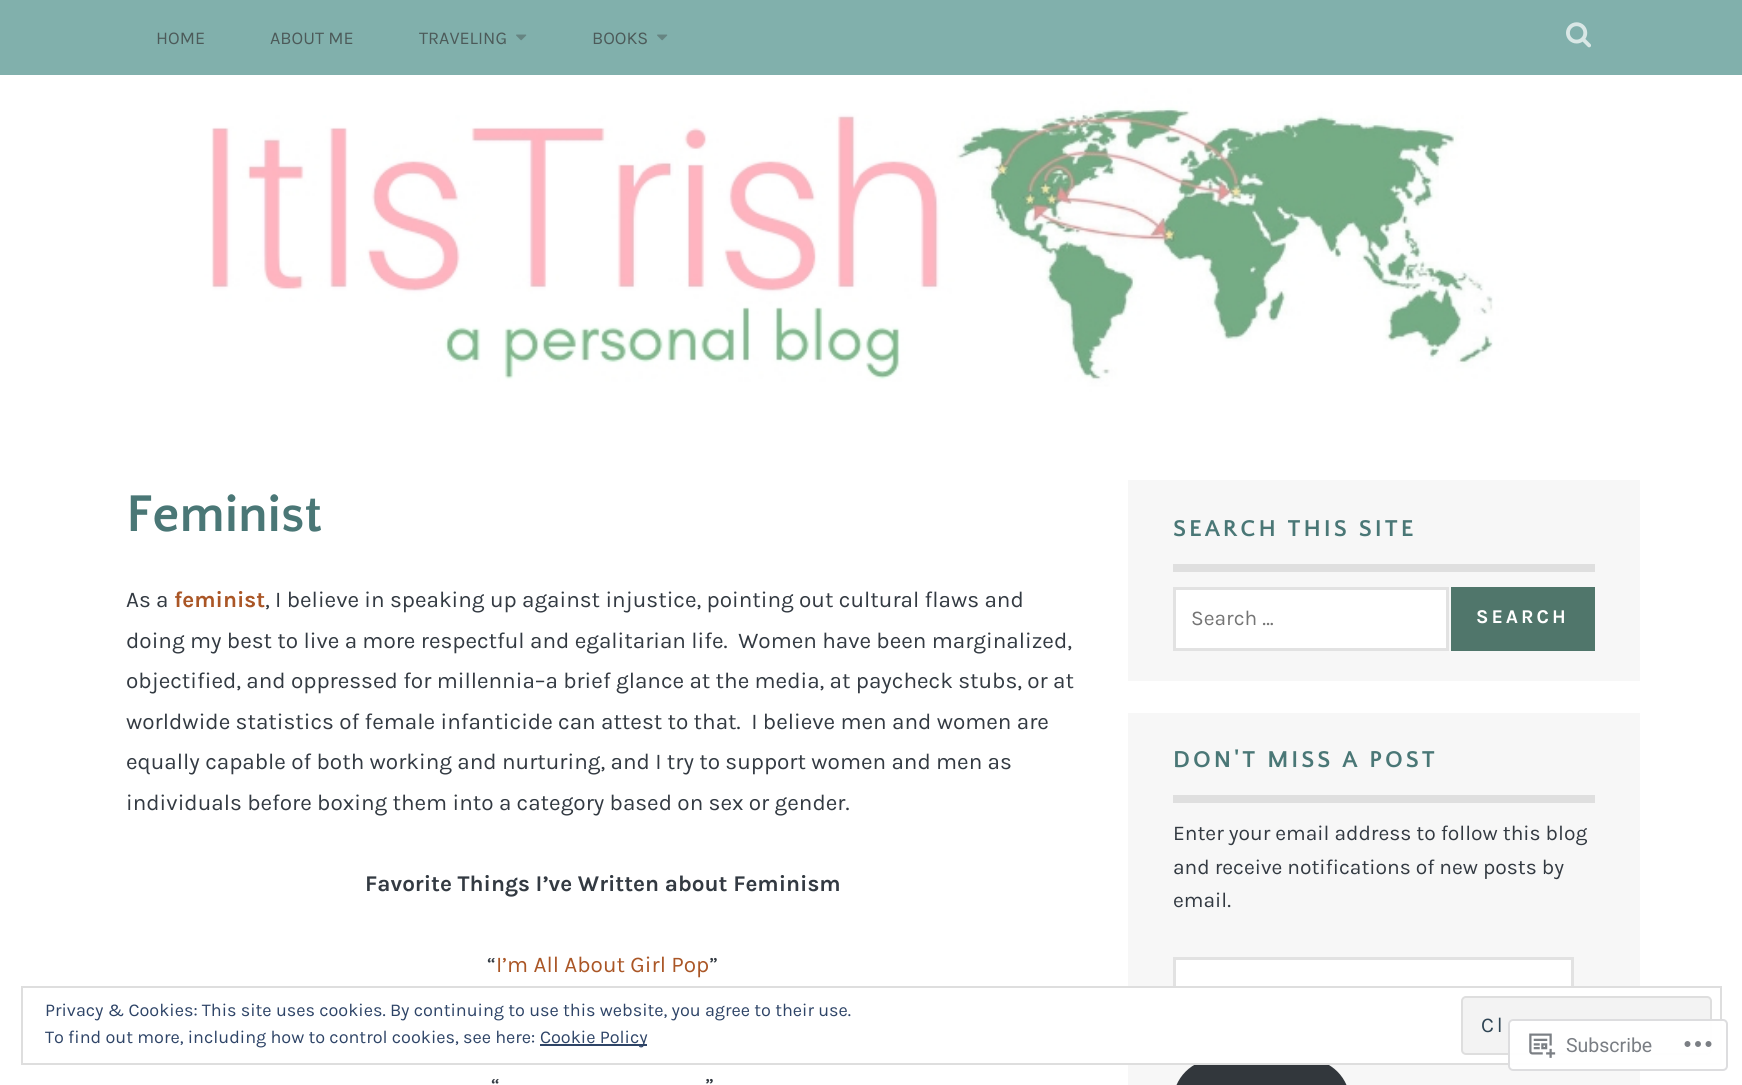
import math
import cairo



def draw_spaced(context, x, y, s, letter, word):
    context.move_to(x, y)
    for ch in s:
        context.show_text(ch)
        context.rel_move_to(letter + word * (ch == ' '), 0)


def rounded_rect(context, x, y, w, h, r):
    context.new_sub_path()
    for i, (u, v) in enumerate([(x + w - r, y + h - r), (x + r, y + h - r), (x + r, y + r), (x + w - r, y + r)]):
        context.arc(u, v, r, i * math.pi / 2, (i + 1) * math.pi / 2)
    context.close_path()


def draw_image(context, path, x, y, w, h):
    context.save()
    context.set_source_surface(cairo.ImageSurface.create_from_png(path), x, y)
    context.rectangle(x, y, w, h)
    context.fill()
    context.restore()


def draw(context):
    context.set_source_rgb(1, 1, 1)
    context.paint()
    context.set_source_rgb(129 / 255, 176 / 255, 172 / 255)
    context.rectangle(0, 0, 1742, 75)
    context.fill()
    draw_image(context, "images/1.png", 516, 34, 11, 7)
    draw_image(context, "images/1.png", 657, 34, 11, 7)
    draw_image(context, "images/2.png", 1566, 22, 25, 26)
    draw_image(context, "images/3.png", 0, 75, 1742, 330)
    context.set_source_rgb(247 / 255, 247 / 255, 247 / 255)
    context.rectangle(1128, 480, 512, 201)
    context.fill()
    context.set_source_rgb(223 / 255, 223 / 255, 223 / 255)
    context.rectangle(1173, 564, 422, 8)
    context.fill()
    context.set_source_rgb(1, 1, 1)
    context.rectangle(1174.5, 588.5, 273, 61)
    context.fill_preserve()
    context.set_source_rgb(226 / 255, 226 / 255, 226 / 255)
    context.set_line_width(3)
    context.stroke()
    context.set_source_rgb(80 / 255, 118 / 255, 107 / 255)
    context.rectangle(1451, 587, 144, 64)
    context.fill()
    context.set_source_rgb(247 / 255, 247 / 255, 247 / 255)
    context.rectangle(1128, 713, 512, 372)
    context.fill()
    context.set_source_rgb(223 / 255, 223 / 255, 223 / 255)
    context.rectangle(1173, 795, 422, 8)
    context.fill()
    context.set_source_rgb(1, 1, 1)
    context.rectangle(1176, 960, 395, 26)
    context.fill()
    context.rectangle(1174.5, 958.5, 398, 62)
    context.set_source_rgb(226 / 255, 226 / 255, 226 / 255)
    context.stroke()
    context.set_source_rgb(50 / 255, 55 / 255, 60 / 255)
    rounded_rect(context, 1173, 1059, 177, 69, 43)
    context.fill()
    context.set_source_rgb(1, 1, 1)
    context.rectangle(1128, 988, 512, 75)
    context.fill()
    context.rectangle(22, 987, 1699, 77)
    context.set_source_rgb(222 / 255, 222 / 255, 222 / 255)
    context.set_line_width(2)
    context.stroke()
    context.set_source_rgb(243 / 255, 243 / 255, 243 / 255)
    rounded_rect(context, 1462, 997, 249, 57, 4)
    context.fill_preserve()
    context.set_source_rgb(222 / 255, 222 / 255, 222 / 255)
    context.stroke()
    context.set_source_rgb(46 / 255, 68 / 255, 103 / 255)
    context.rectangle(540, 1044, 107, 2)
    context.fill()
    context.set_source_rgba(1, 1, 1, 0.98)
    rounded_rect(context, 1508, 1019, 220, 52, 5)
    context.fill()
    rounded_rect(context, 1509, 1020, 218, 50, 4)
    context.set_source_rgba(220 / 255, 220 / 255, 222 / 255, 0.98)
    context.stroke()
    draw_image(context, "images/4.png", 1529, 1033, 27, 25)
    draw_image(context, "images/5.png", 1684, 1041, 28, 6)
    context.select_font_face("Karla")
    context.set_font_size(18)
    context.set_source_rgb(76 / 255, 90 / 255, 89 / 255)
    context.move_to(156, 44)
    context.show_text("HOME")
    context.move_to(270, 44)
    context.show_text("ABOUT ME")
    context.move_to(419, 44)
    context.show_text("TRAVELING")
    context.move_to(592, 44)
    context.show_text("BOOKS")
    context.select_font_face("Quattrocento Sans", cairo.FontSlant.NORMAL, cairo.FontWeight.BOLD)
    context.set_font_size(54)
    context.set_source_rgb(74 / 255, 119 / 255, 118 / 255)
    context.move_to(126, 531)
    context.show_text("Feminist")
    context.select_font_face("Karla")
    context.set_font_size(22.5)
    context.set_source_rgb(51 / 255, 58 / 255, 66 / 255)
    context.move_to(126, 607)
    context.show_text("As a")
    context.select_font_face("Karla", cairo.FontSlant.NORMAL, cairo.FontWeight.BOLD)
    context.set_source_rgb(170 / 255, 86 / 255, 38 / 255)
    context.move_to(174, 607)
    context.show_text("feminist")
    context.select_font_face("Karla")
    context.set_source_rgb(51 / 255, 58 / 255, 66 / 255)
    context.move_to(265, 607)
    context.show_text(", I believe in speaking up against injustice, pointing out cultural flaws and")
    context.move_to(126, 648)
    context.show_text("doing my best to live a more respectful and egalitarian life.  Women have been marginalized,")
    context.move_to(126, 688)
    context.show_text("objectified, and oppressed for millennia–a brief glance at the media, at paycheck stubs, or at")
    context.move_to(126, 729)
    context.show_text("worldwide statistics of female infanticide can attest to that.  I believe men and women are")
    context.move_to(126, 769)
    context.show_text("equally capable of both working and nurturing, and I try to support women and men as")
    context.move_to(126, 810)
    context.show_text("individuals before boxing them into a category based on sex or gender.")
    context.select_font_face("Karla", cairo.FontSlant.NORMAL, cairo.FontWeight.BOLD)
    context.move_to(365, 891)
    context.show_text("Favorite Things I’ve Written about Feminism")
    context.select_font_face("Karla")
    context.move_to(487, 972)
    context.show_text("“")
    context.set_source_rgb(170 / 255, 86 / 255, 38 / 255)
    context.move_to(496, 972)
    context.show_text("I’m All About Girl Pop")
    context.set_source_rgb(51 / 255, 58 / 255, 66 / 255)
    context.move_to(709, 972)
    context.show_text("”")
    context.move_to(491, 1093)
    context.show_text("“")
    context.move_to(705, 1093)
    context.show_text("”")
    context.select_font_face("Quattrocento Sans", cairo.FontSlant.NORMAL, cairo.FontWeight.BOLD)
    context.set_font_size(24)
    context.set_source_rgb(74 / 255, 119 / 255, 118 / 255)
    draw_spaced(context, 1173, 536, "SEARCH THIS SITE", 3, 0)
    context.select_font_face("Karla")
    context.set_font_size(21)
    context.set_source_rgb(117 / 255, 117 / 255, 117 / 255)
    context.move_to(1191, 625)
    context.show_text("Search …")
    context.select_font_face("Karla", cairo.FontSlant.NORMAL, cairo.FontWeight.BOLD)
    context.set_font_size(19.5)
    context.set_source_rgb(1, 1, 1)
    draw_spaced(context, 1476, 623, "SEARCH", 3, 0)
    context.select_font_face("Quattrocento Sans", cairo.FontSlant.NORMAL, cairo.FontWeight.BOLD)
    context.set_font_size(24)
    context.set_source_rgb(74 / 255, 119 / 255, 118 / 255)
    draw_spaced(context, 1173, 767, "DON'T MISS A POST", 3, 0)
    context.select_font_face("Karla")
    context.set_font_size(21)
    context.set_source_rgb(51 / 255, 58 / 255, 66 / 255)
    context.move_to(1173, 840)
    context.show_text("Enter your email address to follow this blog")
    context.move_to(1173, 874)
    context.show_text("and receive notifications of new posts by")
    context.move_to(1173, 907)
    context.show_text("email.")
    context.set_font_size(18)
    context.set_source_rgb(46 / 255, 68 / 255, 103 / 255)
    context.move_to(45, 1016)
    context.show_text("Privacy & Cookies: This site uses cookies. By continuing to use this website, you agree to their use.")
    context.set_font_size(21)
    context.set_source_rgb(46 / 255, 68 / 255, 83 / 255)
    draw_spaced(context, 1481, 1032, "Cl", 3, 0)
    context.set_font_size(18)
    context.set_source_rgb(46 / 255, 68 / 255, 103 / 255)
    context.move_to(45, 1043)
    context.show_text("To find out more, including how to control cookies, see here:")
    context.move_to(540, 1043)
    context.show_text("Cookie Policy")
    context.select_font_face("Roboto")
    context.set_font_size(19.5)
    context.set_source_rgb(122 / 255, 126 / 255, 132 / 255)
    context.move_to(1566, 1052)
    context.show_text("Subscribe")


surface = cairo.ImageSurface(cairo.Format.RGB24, 1742, 1085)
context = cairo.Context(surface)
options = cairo.FontOptions()
options.set_hint_metrics(cairo.HintMetrics.OFF)
options.set_hint_style(cairo.HintStyle.NONE)
context.set_font_options(options)
context.set_miter_limit(4)
draw(context)
surface.write_to_png("out.png")
